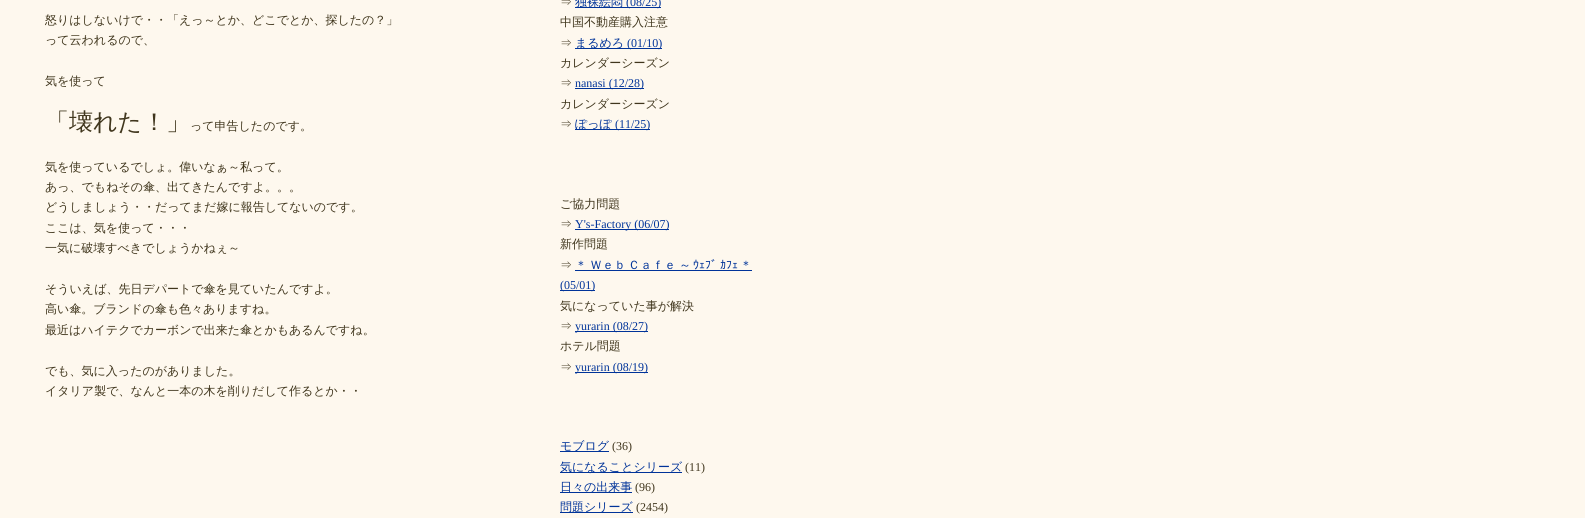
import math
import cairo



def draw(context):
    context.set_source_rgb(254 / 255, 248 / 255, 238 / 255)
    context.paint()
    context.set_source_rgb(0, 51 / 255, 153 / 255)
    context.rectangle(575, 7, 86, 1)
    context.fill()
    context.rectangle(575, 48, 87, 1)
    context.fill()
    context.rectangle(575, 88, 69, 1)
    context.fill()
    context.rectangle(575, 129, 75, 1)
    context.fill()
    context.rectangle(575, 229, 94, 1)
    context.fill()
    context.rectangle(575, 270, 177, 1)
    context.fill()
    context.rectangle(560, 290, 35, 1)
    context.fill()
    context.rectangle(575, 331, 73, 1)
    context.fill()
    context.rectangle(575, 372, 73, 1)
    context.fill()
    context.rectangle(560, 451, 49, 1)
    context.fill()
    context.rectangle(560, 472, 122, 1)
    context.fill()
    context.rectangle(560, 492, 72, 1)
    context.fill()
    context.rectangle(560, 512, 73, 1)
    context.fill()
    context.select_font_face("WenQuanYi Zen Hei Medium")
    context.set_font_size(12)
    context.set_source_rgb(64 / 255, 54 / 255, 29 / 255)
    context.move_to(45, 24)
    context.show_text("怒りはしないけで・・「えっ～とか、どこでとか、探したの？」")
    context.move_to(45, 44)
    context.show_text("って云われるので、")
    context.move_to(45, 85)
    context.show_text("気を使って")
    context.set_font_size(24)
    context.move_to(45, 130)
    context.show_text("「壊れた！」")
    context.set_font_size(12)
    context.move_to(190, 130)
    context.show_text("って申告したのです。")
    context.move_to(45, 171)
    context.show_text("気を使っているでしょ。偉いなぁ～私って。")
    context.move_to(45, 191)
    context.show_text("あっ、でもねその傘、出てきたんですよ。。。")
    context.move_to(45, 211)
    context.show_text("どうしましょう・・だってまだ嫁に報告してないのです。")
    context.move_to(45, 232)
    context.show_text("ここは、気を使って・・・")
    context.move_to(45, 252)
    context.show_text("一気に破壊すべきでしょうかねぇ～")
    context.move_to(45, 293)
    context.show_text("そういえば、先日デパートで傘を見ていたんですよ。")
    context.move_to(45, 313)
    context.show_text("高い傘。ブランドの傘も色々ありますね。")
    context.move_to(45, 334)
    context.show_text("最近はハイテクでカーボンで出来た傘とかもあるんですね。")
    context.move_to(45, 375)
    context.show_text("でも、気に入ったのがありました。")
    context.move_to(45, 395)
    context.show_text("イタリア製で、なんと一本の木を削りだして作るとか・・")
    context.move_to(560, 6)
    context.show_text("⇒")
    context.set_source_rgb(0, 51 / 255, 153 / 255)
    context.move_to(575, 6)
    context.show_text("独裸絵悶")
    context.select_font_face("Liberation Serif")
    context.move_to(626, 6)
    context.show_text("(08/25)")
    context.select_font_face("WenQuanYi Zen Hei Medium")
    context.set_source_rgb(64 / 255, 54 / 255, 29 / 255)
    context.move_to(560, 26)
    context.show_text("中国不動産購入注意")
    context.move_to(560, 47)
    context.show_text("⇒")
    context.set_source_rgb(0, 51 / 255, 153 / 255)
    context.move_to(575, 47)
    context.show_text("まるめろ")
    context.select_font_face("Liberation Serif")
    context.move_to(627, 47)
    context.show_text("(01/10)")
    context.select_font_face("WenQuanYi Zen Hei Medium")
    context.set_source_rgb(64 / 255, 54 / 255, 29 / 255)
    context.move_to(560, 67)
    context.show_text("カレンダーシーズン")
    context.move_to(560, 87)
    context.show_text("⇒")
    context.select_font_face("Liberation Serif")
    context.set_source_rgb(0, 51 / 255, 153 / 255)
    context.move_to(575, 87)
    context.show_text("nanasi (12/28)")
    context.select_font_face("WenQuanYi Zen Hei Medium")
    context.set_source_rgb(64 / 255, 54 / 255, 29 / 255)
    context.move_to(560, 108)
    context.show_text("カレンダーシーズン")
    context.move_to(560, 128)
    context.show_text("⇒")
    context.set_source_rgb(0, 51 / 255, 153 / 255)
    context.move_to(575, 128)
    context.show_text("ぽっぽ")
    context.select_font_face("Liberation Serif")
    context.move_to(615, 128)
    context.show_text("(11/25)")
    context.select_font_face("WenQuanYi Zen Hei Medium")
    context.set_source_rgb(64 / 255, 54 / 255, 29 / 255)
    context.move_to(560, 208)
    context.show_text("ご協力問題")
    context.move_to(560, 228)
    context.show_text("⇒")
    context.select_font_face("Liberation Serif")
    context.set_source_rgb(0, 51 / 255, 153 / 255)
    context.move_to(575, 228)
    context.show_text("Y's-Factory (06/07)")
    context.select_font_face("WenQuanYi Zen Hei Medium")
    context.set_source_rgb(64 / 255, 54 / 255, 29 / 255)
    context.move_to(560, 248)
    context.show_text("新作問題")
    context.move_to(560, 269)
    context.show_text("⇒")
    context.set_source_rgb(0, 51 / 255, 153 / 255)
    context.move_to(575, 269)
    context.show_text("＊")
    context.move_to(590, 269)
    context.show_text("Ｗｅｂ")
    context.move_to(628, 269)
    context.show_text("Ｃａｆｅ")
    context.move_to(679, 269)
    context.show_text("～")
    context.select_font_face("IPAPGothic")
    context.move_to(693, 269)
    context.show_text("ｳｪﾌﾞ")
    context.move_to(720, 269)
    context.show_text("ｶﾌｪ")
    context.select_font_face("WenQuanYi Zen Hei Medium")
    context.move_to(740, 269)
    context.show_text("＊")
    context.select_font_face("Liberation Serif")
    context.move_to(560, 289)
    context.show_text("(05/01)")
    context.select_font_face("WenQuanYi Zen Hei Medium")
    context.set_source_rgb(64 / 255, 54 / 255, 29 / 255)
    context.move_to(560, 310)
    context.show_text("気になっていた事が解決")
    context.move_to(560, 330)
    context.show_text("⇒")
    context.select_font_face("Liberation Serif")
    context.set_source_rgb(0, 51 / 255, 153 / 255)
    context.move_to(575, 330)
    context.show_text("yurarin (08/27)")
    context.select_font_face("WenQuanYi Zen Hei Medium")
    context.set_source_rgb(64 / 255, 54 / 255, 29 / 255)
    context.move_to(560, 350)
    context.show_text("ホテル問題")
    context.move_to(560, 371)
    context.show_text("⇒")
    context.select_font_face("Liberation Serif")
    context.set_source_rgb(0, 51 / 255, 153 / 255)
    context.move_to(575, 371)
    context.show_text("yurarin (08/19)")
    context.select_font_face("WenQuanYi Zen Hei Medium")
    context.move_to(560, 450)
    context.show_text("モブログ")
    context.select_font_face("Liberation Serif")
    context.set_source_rgb(64 / 255, 54 / 255, 29 / 255)
    context.move_to(612, 450)
    context.show_text("(36)")
    context.select_font_face("WenQuanYi Zen Hei Medium")
    context.set_source_rgb(0, 51 / 255, 153 / 255)
    context.move_to(560, 471)
    context.show_text("気になることシリーズ")
    context.select_font_face("Liberation Serif")
    context.set_source_rgb(64 / 255, 54 / 255, 29 / 255)
    context.move_to(685, 471)
    context.show_text("(11)")
    context.select_font_face("WenQuanYi Zen Hei Medium")
    context.set_source_rgb(0, 51 / 255, 153 / 255)
    context.move_to(560, 491)
    context.show_text("日々の出来事")
    context.select_font_face("Liberation Serif")
    context.set_source_rgb(64 / 255, 54 / 255, 29 / 255)
    context.move_to(635, 491)
    context.show_text("(96)")
    context.select_font_face("WenQuanYi Zen Hei Medium")
    context.set_source_rgb(0, 51 / 255, 153 / 255)
    context.move_to(560, 511)
    context.show_text("問題シリーズ")
    context.select_font_face("Liberation Serif")
    context.set_source_rgb(64 / 255, 54 / 255, 29 / 255)
    context.move_to(636, 511)
    context.show_text("(2454)")


surface = cairo.ImageSurface(cairo.Format.RGB24, 1585, 518)
context = cairo.Context(surface)
options = cairo.FontOptions()
options.set_hint_metrics(cairo.HintMetrics.OFF)
options.set_hint_style(cairo.HintStyle.NONE)
context.set_font_options(options)
context.set_miter_limit(4)
draw(context)
surface.write_to_png("out.png")
